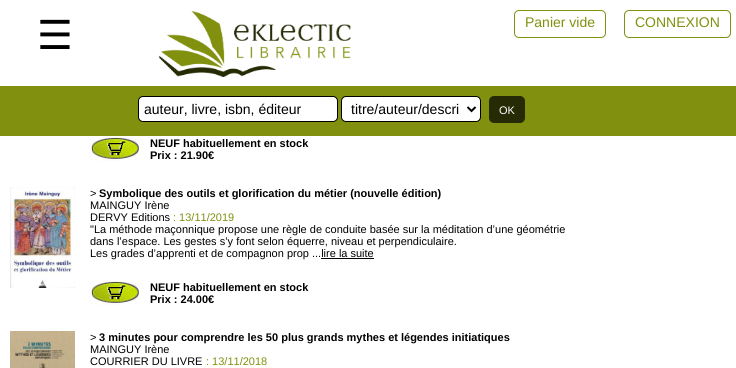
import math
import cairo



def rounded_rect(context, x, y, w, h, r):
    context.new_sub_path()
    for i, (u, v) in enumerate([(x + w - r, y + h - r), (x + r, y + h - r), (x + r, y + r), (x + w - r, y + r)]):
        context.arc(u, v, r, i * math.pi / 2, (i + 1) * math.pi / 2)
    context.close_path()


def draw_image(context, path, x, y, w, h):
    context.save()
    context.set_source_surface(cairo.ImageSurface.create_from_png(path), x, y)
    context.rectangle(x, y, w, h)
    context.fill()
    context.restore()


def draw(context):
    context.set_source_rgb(1, 1, 1)
    context.paint()
    draw_image(context, "images/1.png", 158, 11, 193, 66)
    rounded_rect(context, 514.5, 10.5, 91, 27, 4.5)
    context.set_source_rgb(129 / 255, 144 / 255, 15 / 255)
    context.set_line_width(1)
    context.stroke()
    rounded_rect(context, 624.5, 10.5, 106, 27, 4.5)
    context.stroke()
    context.rectangle(0, 86, 736, 50)
    context.fill()
    context.set_source_rgb(1, 1, 1)
    rounded_rect(context, 138.5, 96.5, 199, 25, 4.5)
    context.fill_preserve()
    context.set_source_rgb(0, 0, 0)
    context.stroke()
    context.set_source_rgb(1, 1, 1)
    rounded_rect(context, 341.5, 96.5, 139, 25, 4.5)
    context.fill_preserve()
    context.set_source_rgb(0, 0, 0)
    context.stroke()
    context.new_path()
    context.move_to(467.5, 107)
    context.line_to(471.5, 111)
    context.line_to(475.5, 107)
    context.set_line_width(2)
    context.stroke()
    context.set_source_rgb(38 / 255, 42 / 255, 5 / 255)
    rounded_rect(context, 489, 96, 36, 27, 5)
    context.fill()
    draw_image(context, "images/2.png", 90, 137, 49, 24)
    draw_image(context, "images/3.png", 10, 187, 65, 101)
    context.set_source_rgb(0, 0, 0)
    context.rectangle(321, 258, 53, 1)
    context.fill()
    draw_image(context, "images/2.png", 90, 281, 49, 24)
    draw_image(context, "images/4.png", 10, 331, 65, 37)
    context.select_font_face("DejaVu Sans")
    context.set_font_size(40)
    context.move_to(37, 49)
    context.show_text("☰")
    context.select_font_face("Liberation Sans")
    context.set_font_size(14)
    context.set_source_rgb(129 / 255, 144 / 255, 14 / 255)
    context.move_to(525, 27)
    context.show_text("Panier vide")
    context.move_to(635, 27)
    context.show_text("CONNEXION")
    context.set_source_rgb(0, 0, 0)
    context.move_to(144, 114)
    context.show_text("auteur, livre, isbn, éditeur")
    context.move_to(351, 114)
    context.show_text("titre/auteur/descri")
    context.set_font_size(11)
    context.set_source_rgb(1, 1, 1)
    context.move_to(499, 114)
    context.show_text("OK")
    context.select_font_face("Liberation Sans", cairo.FontSlant.NORMAL, cairo.FontWeight.BOLD)
    context.set_source_rgb(0, 0, 0)
    context.move_to(150, 147)
    context.show_text("NEUF habituellement en stock")
    context.move_to(150, 159)
    context.show_text("Prix : 21.90€")
    context.select_font_face("Liberation Sans")
    context.move_to(90, 197)
    context.show_text(">")
    context.select_font_face("Liberation Sans", cairo.FontSlant.NORMAL, cairo.FontWeight.BOLD)
    context.move_to(99, 197)
    context.show_text("Symbolique des outils et glorification du métier (nouvelle édition)")
    context.select_font_face("Liberation Sans")
    context.move_to(90, 209)
    context.show_text("MAINGUY Irène")
    context.move_to(90, 221)
    context.show_text("DERVY Editions")
    context.set_source_rgb(129 / 255, 144 / 255, 14 / 255)
    context.move_to(173, 221)
    context.show_text(": 13/11/2019")
    context.set_source_rgb(0, 0, 0)
    context.move_to(90, 233)
    context.show_text("\"La méthode maçonnique propose une règle de conduite basée sur la méditation d’une géométrie")
    context.move_to(90, 245)
    context.show_text("dans l’espace. Les gestes s’y font selon équerre, niveau et perpendiculaire.")
    context.move_to(90, 257)
    context.show_text("Les grades d’apprenti et de compagnon prop ...lire la suite")
    context.select_font_face("Liberation Sans", cairo.FontSlant.NORMAL, cairo.FontWeight.BOLD)
    context.move_to(150, 291)
    context.show_text("NEUF habituellement en stock")
    context.move_to(150, 303)
    context.show_text("Prix : 24.00€")
    context.select_font_face("Liberation Sans")
    context.move_to(90, 341)
    context.show_text(">")
    context.select_font_face("Liberation Sans", cairo.FontSlant.NORMAL, cairo.FontWeight.BOLD)
    context.move_to(99, 341)
    context.show_text("3 minutes pour comprendre les 50 plus grands mythes et légendes initiatiques")
    context.select_font_face("Liberation Sans")
    context.move_to(90, 353)
    context.show_text("MAINGUY Irène")
    context.move_to(90, 365)
    context.show_text("COURRIER DU LIVRE")
    context.set_source_rgb(129 / 255, 144 / 255, 14 / 255)
    context.move_to(206, 365)
    context.show_text(": 13/11/2018")


surface = cairo.ImageSurface(cairo.Format.RGB24, 736, 368)
context = cairo.Context(surface)
options = cairo.FontOptions()
options.set_hint_metrics(cairo.HintMetrics.OFF)
options.set_hint_style(cairo.HintStyle.NONE)
context.set_font_options(options)
context.set_miter_limit(4)
draw(context)
surface.write_to_png("out.png")
